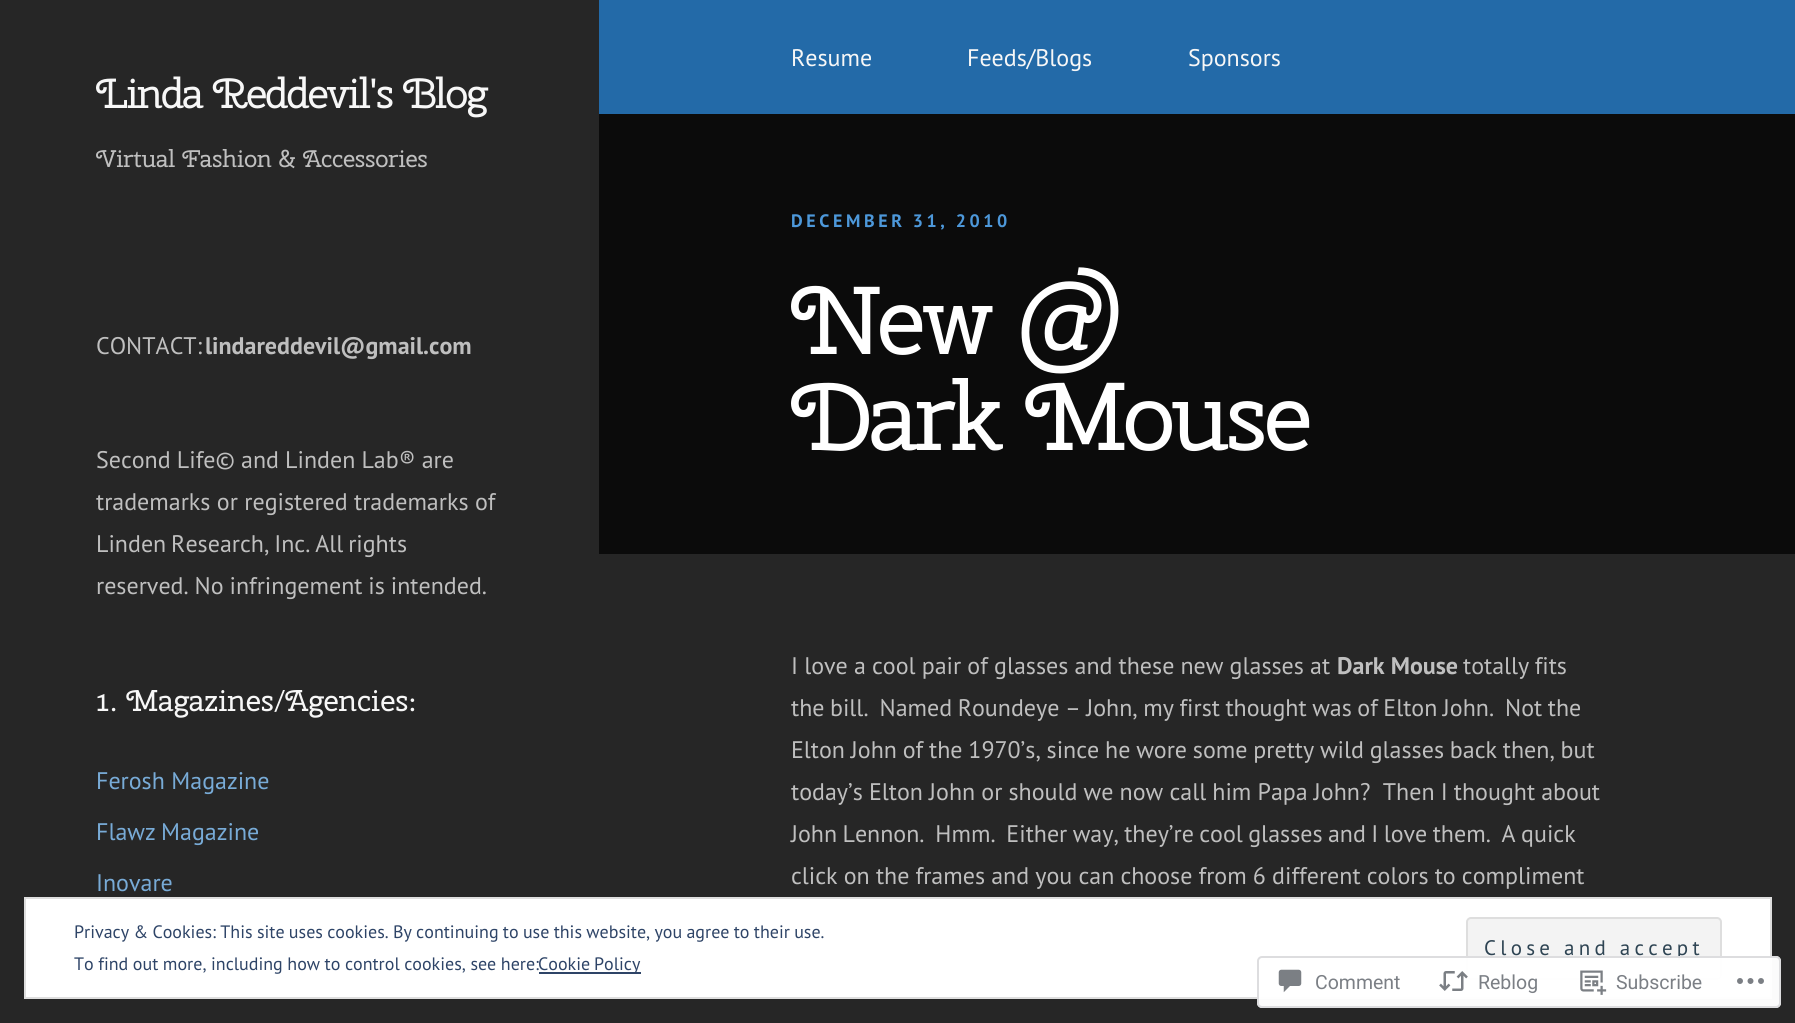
import math
import cairo



def draw_spaced(context, x, y, s, letter, word):
    context.move_to(x, y)
    for ch in s:
        context.show_text(ch)
        context.rel_move_to(letter + word * (ch == ' '), 0)


def rounded_rect(context, x, y, w, h, r):
    context.new_sub_path()
    for i, (u, v) in enumerate([(x + w - r, y + h - r), (x + r, y + h - r), (x + r, y + r), (x + w - r, y + r)]):
        context.arc(u, v, r, i * math.pi / 2, (i + 1) * math.pi / 2)
    context.close_path()


def draw_image(context, path, x, y, w, h):
    context.save()
    context.set_source_surface(cairo.ImageSurface.create_from_png(path), x, y)
    context.rectangle(x, y, w, h)
    context.fill()
    context.restore()


def draw(context):
    context.set_source_rgb(38 / 255, 38 / 255, 38 / 255)
    context.paint()
    context.set_source_rgb(35 / 255, 106 / 255, 168 / 255)
    context.rectangle(599, 0, 1196, 114)
    context.fill()
    context.set_source_rgb(11 / 255, 11 / 255, 11 / 255)
    context.rectangle(599, 114, 1196, 440)
    context.fill()
    context.set_source_rgb(1, 1, 1)
    context.rectangle(25, 898, 1746, 100)
    context.fill_preserve()
    context.set_source_rgb(222 / 255, 222 / 255, 222 / 255)
    context.stroke()
    context.set_source_rgb(243 / 255, 243 / 255, 243 / 255)
    rounded_rect(context, 1467, 918, 254, 61, 4)
    context.fill_preserve()
    context.set_source_rgb(222 / 255, 222 / 255, 222 / 255)
    context.stroke()
    context.set_source_rgb(46 / 255, 68 / 255, 103 / 255)
    context.rectangle(539, 972, 102, 2)
    context.fill()
    context.select_font_face("Cherry Swash")
    context.set_font_size(42)
    context.set_source_rgb(247 / 255, 247 / 255, 247 / 255)
    draw_spaced(context, 96, 108, "Linda Reddevil's Blog", -2.1, 0)
    context.set_font_size(24)
    context.set_source_rgb(191 / 255, 191 / 255, 191 / 255)
    draw_spaced(context, 96, 167, "Virtual Fashion & Accessories", -0.25, 0)
    context.select_font_face("PT Sans")
    context.set_source_rgb(247 / 255, 247 / 255, 247 / 255)
    context.move_to(791, 66)
    context.show_text("Resume")
    context.move_to(967, 66)
    context.show_text("Feeds/Blogs")
    context.move_to(1188, 66)
    context.show_text("Sponsors")
    context.select_font_face("PT Sans", cairo.FontSlant.NORMAL, cairo.FontWeight.BOLD)
    context.set_font_size(18)
    context.set_source_rgb(77 / 255, 152 / 255, 218 / 255)
    draw_spaced(context, 791, 227, "DECEMBER 31, 2010", 3.6, -1)
    context.select_font_face("Cherry Swash")
    context.set_font_size(96)
    context.set_source_rgb(1, 1, 1)
    draw_spaced(context, 791, 354, "New @", -3.75, 0)
    draw_spaced(context, 791, 450, "Dark Mouse", -3.75, 0)
    context.select_font_face("PT Sans")
    context.set_font_size(24)
    context.set_source_rgb(191 / 255, 191 / 255, 191 / 255)
    draw_spaced(context, 791, 674, "I love a cool pair of glasses and these new glasses at", 0, -0.25)
    context.select_font_face("PT Sans", cairo.FontSlant.NORMAL, cairo.FontWeight.BOLD)
    context.move_to(1337, 674)
    context.show_text("Dark Mouse")
    context.select_font_face("PT Sans")
    draw_spaced(context, 1463, 674, "totally fits", 0, -1)
    draw_spaced(context, 791, 716, "the bill.  Named Roundeye – John, my first thought was of Elton John.  Not the", 0, -0.9)
    draw_spaced(context, 791, 758, "Elton John of the 1970’s, since he wore some pretty wild glasses back then, but", 0, -0.6)
    draw_spaced(context, 791, 800, "today’s Elton John or should we now call him Papa John?  Then I thought about", 0, -0.25)
    draw_spaced(context, 791, 842, "John Lennon.  Hmm.  Either way, they’re cool glasses and I love them.  A quick", 0, -1)
    draw_spaced(context, 791, 884, "click on the frames and you can choose from 6 different colors to compliment", 0, -0.25)
    context.move_to(96, 354)
    context.show_text("CONTACT:")
    context.select_font_face("PT Sans", cairo.FontSlant.NORMAL, cairo.FontWeight.BOLD)
    context.move_to(205, 354)
    context.show_text("lindareddevil@gmail.com")
    context.select_font_face("PT Sans")
    draw_spaced(context, 96, 468, "Second Life© and Linden Lab® are", 0, -0.25)
    context.move_to(96, 510)
    context.show_text("trademarks or registered trademarks of")
    draw_spaced(context, 96, 552, "Linden Research, Inc. All rights", 0, -1.5)
    draw_spaced(context, 96, 594, "reserved. No infringement is intended.", 0, -0.5)
    context.select_font_face("Cherry Swash")
    context.set_font_size(30)
    context.set_source_rgb(247 / 255, 247 / 255, 247 / 255)
    context.move_to(96, 711)
    context.show_text("1. Magazines/Agencies:")
    context.select_font_face("PT Sans")
    context.set_font_size(24)
    context.set_source_rgb(120 / 255, 171 / 255, 215 / 255)
    context.move_to(96, 789)
    context.show_text("Ferosh Magazine")
    draw_spaced(context, 96, 840, "Flawz Magazine", 0, -1)
    context.move_to(96, 891)
    context.show_text("Inovare")
    context.set_font_size(18)
    context.set_source_rgb(46 / 255, 68 / 255, 103 / 255)
    draw_spaced(context, 74, 938, "Privacy & Cookies: This site uses cookies. By continuing to use this website, you agree to their use.", 0, -0.5)
    context.set_font_size(21)
    context.set_source_rgb(46 / 255, 68 / 255, 83 / 255)
    draw_spaced(context, 1484, 955, "Close and accept", 4.25, 0)
    context.set_font_size(18)
    context.set_source_rgb(46 / 255, 68 / 255, 103 / 255)
    draw_spaced(context, 74, 970, "To find out more, including how to control cookies, see here:", 0, -0.25)
    draw_spaced(context, 538, 970, "Cookie Policy", 0, -1)
    context.set_source_rgba(1, 1, 1, 0.98)
    rounded_rect(context, 1257, 956, 524, 52, 5)
    context.fill()
    rounded_rect(context, 1258, 957, 522, 50, 4)
    context.set_source_rgba(220 / 255, 220 / 255, 222 / 255, 0.98)
    context.stroke()
    draw_image(context, "images/1.png", 1278, 969, 24, 24)
    context.select_font_face("Roboto")
    context.set_font_size(19.5)
    context.set_source_rgb(123 / 255, 127 / 255, 133 / 255)
    context.move_to(1315, 989)
    context.show_text("Comment")
    draw_image(context, "images/2.png", 1439, 971, 29, 20)
    context.move_to(1478, 989)
    context.show_text("Reblog")
    draw_image(context, "images/3.png", 1580, 970, 27, 25)
    context.move_to(1616, 989)
    context.show_text("Subscribe")
    draw_image(context, "images/4.png", 1737, 978, 27, 6)


surface = cairo.ImageSurface(cairo.Format.RGB24, 1795, 1023)
context = cairo.Context(surface)
options = cairo.FontOptions()
options.set_hint_metrics(cairo.HintMetrics.OFF)
options.set_hint_style(cairo.HintStyle.NONE)
context.set_font_options(options)
context.set_miter_limit(4)
draw(context)
surface.write_to_png("out.png")
